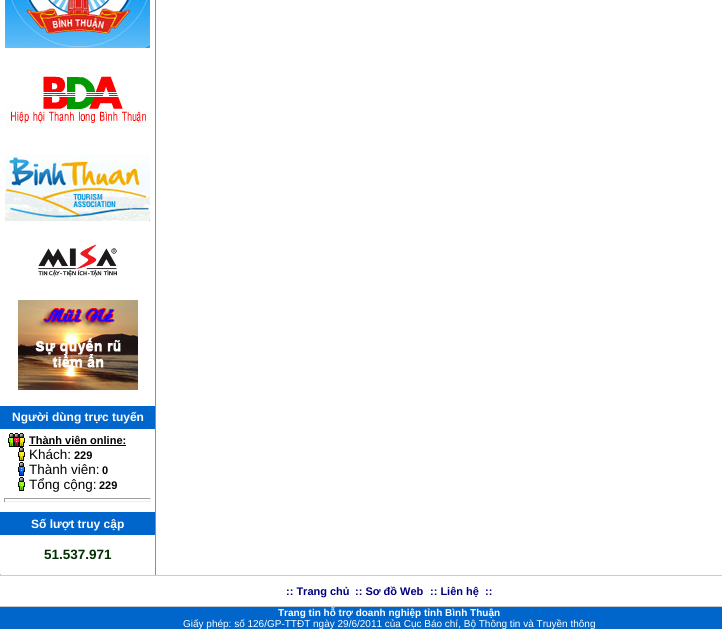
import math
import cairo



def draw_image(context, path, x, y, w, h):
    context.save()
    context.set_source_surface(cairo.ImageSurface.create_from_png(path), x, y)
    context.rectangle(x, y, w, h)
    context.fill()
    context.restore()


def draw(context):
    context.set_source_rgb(1, 1, 1)
    context.paint()
    draw_image(context, "images/1.png", 5, 0, 145, 48)
    draw_image(context, "images/2.png", 5, 72, 144, 56)
    draw_image(context, "images/3.png", 5, 154, 145, 67)
    draw_image(context, "images/4.png", 38, 244, 79, 33)
    draw_image(context, "images/5.png", 18, 300, 120, 90)
    context.set_source_rgb(0, 102 / 255, 204 / 255)
    context.rectangle(0, 406, 155, 23)
    context.fill()
    draw_image(context, "images/6.png", 8, 433, 17, 14)
    context.set_source_rgb(0, 0, 0)
    context.rectangle(29, 445, 97, 1)
    context.fill()
    draw_image(context, "images/7.png", 18, 447, 7, 14)
    draw_image(context, "images/8.png", 18, 462, 7, 14)
    draw_image(context, "images/9.png", 18, 477, 7, 14)
    context.set_source_rgb(159 / 255, 159 / 255, 159 / 255)
    context.rectangle(4, 498, 147, 1)
    context.fill()
    context.set_source_rgb(238 / 255, 238 / 255, 238 / 255)
    context.rectangle(150, 498, 1, 4)
    context.fill()
    context.rectangle(4, 501, 147, 1)
    context.fill()
    context.set_source_rgb(159 / 255, 159 / 255, 159 / 255)
    context.rectangle(4, 498, 1, 4)
    context.fill()
    context.set_source_rgb(0, 102 / 255, 204 / 255)
    context.rectangle(0, 512, 155, 23)
    context.fill()
    context.set_source_rgb(194 / 255, 194 / 255, 194 / 255)
    context.rectangle(0, 574, 1, 1)
    context.fill()
    context.set_source_rgb(68 / 255, 193 / 255, 71 / 255)
    context.rectangle(155, 0, 1, 575)
    context.fill()
    context.set_source_rgb(204 / 255, 204 / 255, 204 / 255)
    context.rectangle(0, 575, 722, 1)
    context.fill()
    context.rectangle(0, 606, 722, 1)
    context.fill()
    context.set_source_rgb(0, 102 / 255, 204 / 255)
    context.rectangle(0, 607, 722, 22)
    context.fill()
    context.select_font_face("Liberation Sans", cairo.FontSlant.NORMAL, cairo.FontWeight.BOLD)
    context.set_font_size(12)
    context.set_source_rgb(1, 1, 1)
    context.move_to(12, 421)
    context.show_text("Người dùng trực tuyến")
    context.set_font_size(11)
    context.set_source_rgb(0, 0, 0)
    context.move_to(29, 444)
    context.show_text("Thành viên online:")
    context.select_font_face("Liberation Sans")
    context.set_font_size(13.5)
    context.move_to(29, 459)
    context.show_text("Khách:")
    context.select_font_face("Liberation Sans", cairo.FontSlant.NORMAL, cairo.FontWeight.BOLD)
    context.set_font_size(11)
    context.move_to(74, 459)
    context.show_text("229")
    context.select_font_face("Liberation Sans")
    context.set_font_size(13.5)
    context.move_to(29, 474)
    context.show_text("Thành viên:")
    context.select_font_face("Liberation Sans", cairo.FontSlant.NORMAL, cairo.FontWeight.BOLD)
    context.set_font_size(11)
    context.move_to(102, 474)
    context.show_text("0")
    context.select_font_face("Liberation Sans")
    context.set_font_size(13.5)
    context.move_to(29, 489)
    context.show_text("Tổng cộng:")
    context.select_font_face("Liberation Sans", cairo.FontSlant.NORMAL, cairo.FontWeight.BOLD)
    context.set_font_size(11)
    context.move_to(99, 489)
    context.show_text("229")
    context.set_font_size(12)
    context.set_source_rgb(1, 1, 1)
    context.move_to(31, 528)
    context.show_text("Số lượt truy cập")
    context.set_font_size(13.5)
    context.set_source_rgb(4 / 255, 45 / 255, 2 / 255)
    context.move_to(44, 559)
    context.show_text("51.537.971")
    context.set_font_size(11)
    context.set_source_rgb(0, 0, 128 / 255)
    context.move_to(286, 595)
    context.show_text(":: Trang chủ")
    context.move_to(355, 595)
    context.show_text(":: Sơ đồ Web")
    context.move_to(430, 595)
    context.show_text(":: Liên hệ")
    context.move_to(485, 595)
    context.show_text("::")
    context.set_font_size(10)
    context.set_source_rgb(1, 1, 1)
    context.move_to(278, 616)
    context.show_text("Trang tin hỗ trợ doanh nghiệp tỉnh Bình Thuận")
    context.select_font_face("Liberation Sans")
    context.move_to(183, 627)
    context.show_text("Giấy phép: số 126/GP-TTĐT ngày 29/6/2011 của Cục Báo chí, Bộ Thông tin và Truyền thông")


surface = cairo.ImageSurface(cairo.Format.RGB24, 722, 629)
context = cairo.Context(surface)
options = cairo.FontOptions()
options.set_hint_metrics(cairo.HintMetrics.OFF)
options.set_hint_style(cairo.HintStyle.NONE)
context.set_font_options(options)
context.set_miter_limit(4)
draw(context)
surface.write_to_png("out.png")
